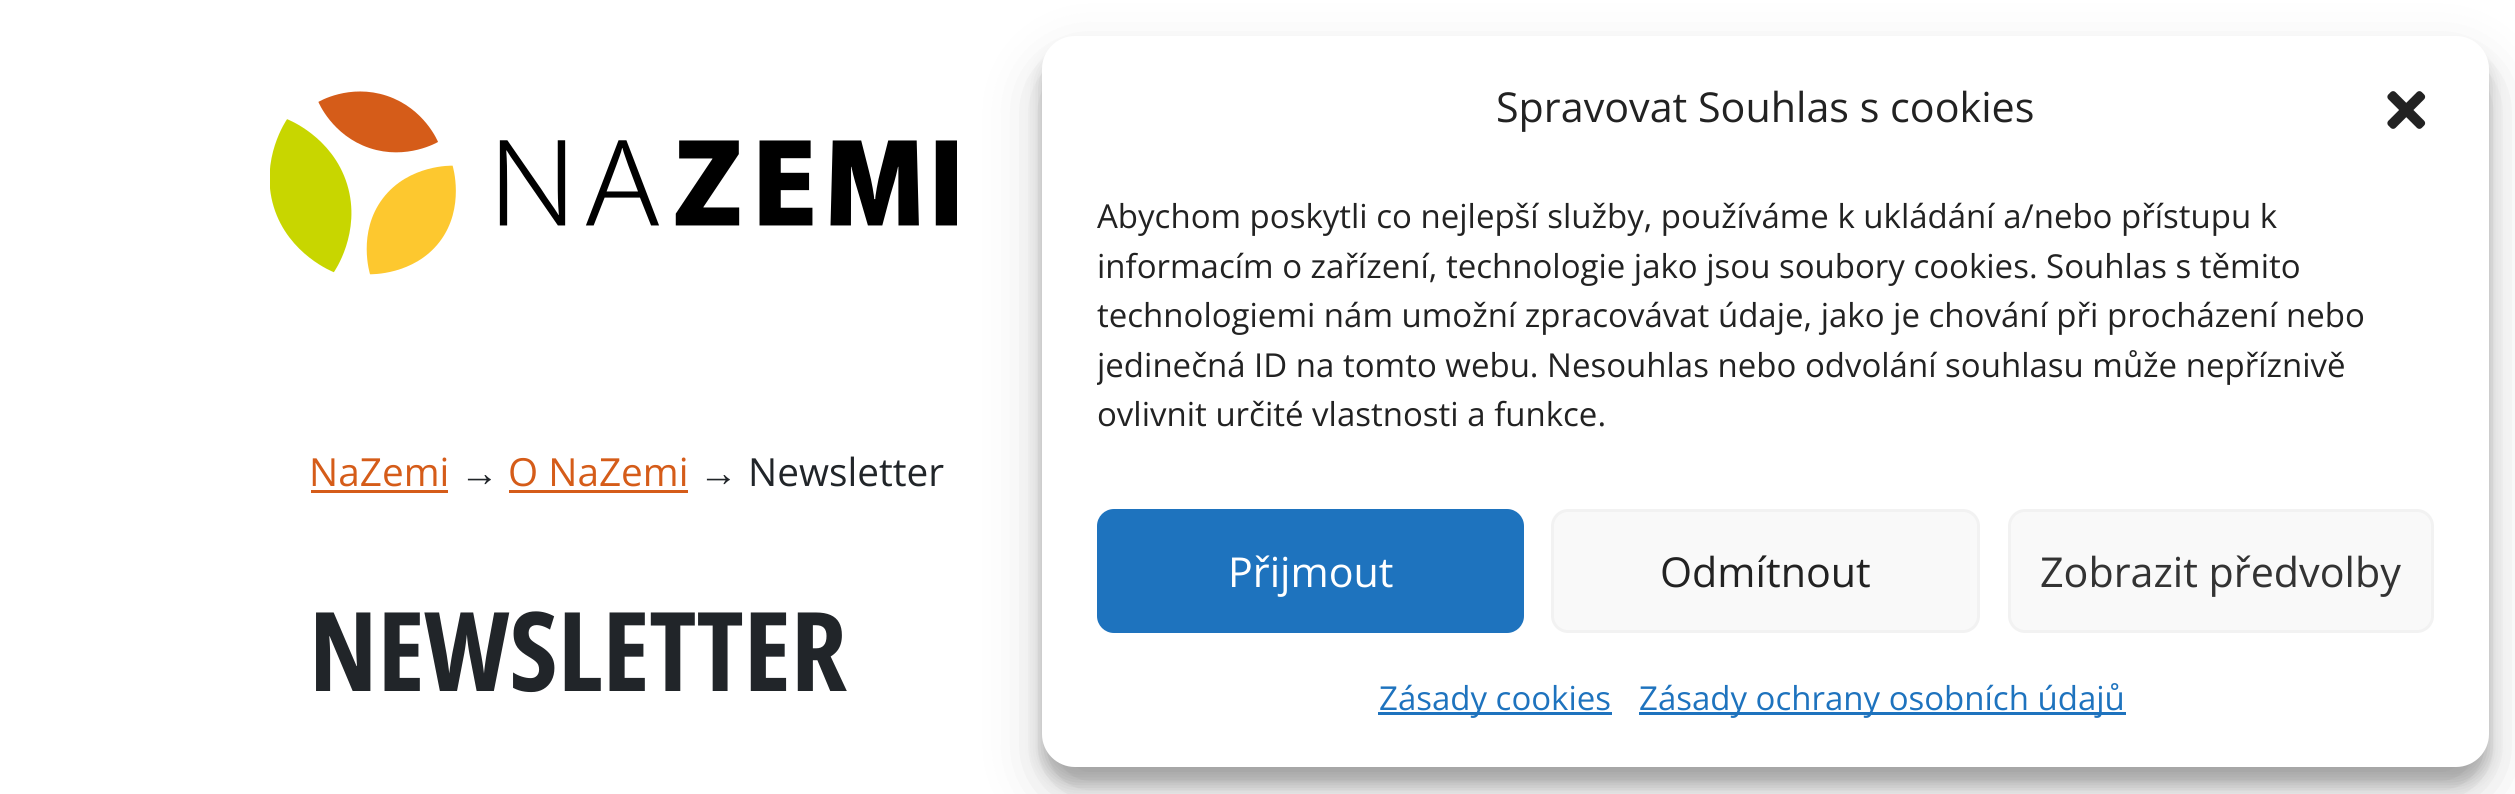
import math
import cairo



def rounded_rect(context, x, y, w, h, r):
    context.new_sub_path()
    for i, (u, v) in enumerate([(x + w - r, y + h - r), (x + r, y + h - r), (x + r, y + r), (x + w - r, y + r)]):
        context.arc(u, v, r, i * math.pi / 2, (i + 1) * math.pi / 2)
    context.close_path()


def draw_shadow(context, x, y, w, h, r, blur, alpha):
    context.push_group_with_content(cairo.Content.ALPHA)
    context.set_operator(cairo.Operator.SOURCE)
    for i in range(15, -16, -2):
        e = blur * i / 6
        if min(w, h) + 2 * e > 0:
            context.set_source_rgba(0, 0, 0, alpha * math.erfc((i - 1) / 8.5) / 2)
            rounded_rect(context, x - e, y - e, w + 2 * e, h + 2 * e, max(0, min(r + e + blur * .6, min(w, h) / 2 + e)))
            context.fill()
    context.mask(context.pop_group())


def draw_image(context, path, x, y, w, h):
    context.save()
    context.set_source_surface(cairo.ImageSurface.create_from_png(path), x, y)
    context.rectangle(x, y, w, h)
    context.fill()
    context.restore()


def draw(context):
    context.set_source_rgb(1, 1, 1)
    context.paint()
    draw_image(context, "images/1.png", 270, 91, 687, 184)
    context.set_source_rgb(0, 0, 0)
    draw_shadow(context, 1042, 52, 1447, 732, 33, 8, 0.23)
    draw_shadow(context, 1042, 63, 1447, 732, 33, 27.5, 0.19)
    context.set_source_rgb(1, 1, 1)
    rounded_rect(context, 1042, 36, 1447, 731, 33)
    context.fill()
    draw_image(context, "images/2.png", 2387, 91, 39, 38)
    context.set_source_rgb(30 / 255, 115 / 255, 190 / 255)
    rounded_rect(context, 1098.5, 510.5, 424, 121, 15.5)
    context.fill_preserve()
    context.set_line_width(3)
    context.stroke()
    context.set_source_rgb(249 / 255, 249 / 255, 249 / 255)
    rounded_rect(context, 1552.5, 510.5, 426, 121, 15.5)
    context.fill_preserve()
    context.set_source_rgb(242 / 255, 242 / 255, 242 / 255)
    context.stroke()
    context.set_source_rgb(249 / 255, 249 / 255, 249 / 255)
    rounded_rect(context, 2009.5, 510.5, 423, 121, 15.5)
    context.fill_preserve()
    context.set_source_rgb(242 / 255, 242 / 255, 242 / 255)
    context.stroke()
    context.set_source_rgb(30 / 255, 115 / 255, 190 / 255)
    context.rectangle(1378, 712, 234, 3)
    context.fill()
    context.rectangle(1639, 712, 487, 3)
    context.fill()
    context.set_source_rgb(213 / 255, 92 / 255, 25 / 255)
    context.rectangle(311, 490, 137, 3)
    context.fill()
    context.rectangle(509, 490, 179, 3)
    context.fill()
    context.select_font_face("Open Sans")
    context.set_font_size(41.25)
    context.set_source_rgb(34 / 255, 34 / 255, 34 / 255)
    context.move_to(1496, 122)
    context.show_text("Spravovat Souhlas s cookies")
    context.set_font_size(33)
    context.move_to(1097, 228)
    context.show_text("Abychom poskytli co nejlepší služby, používáme k ukládání a/nebo přístupu k")
    context.move_to(1097, 278)
    context.show_text("informacím o zařízení, technologie jako jsou soubory cookies. Souhlas s těmito")
    context.move_to(1097, 327)
    context.show_text("technologiemi nám umožní zpracovávat údaje, jako je chování při procházení nebo")
    context.save()
    context.rectangle(1097, 193, 1337, 261)
    context.clip()
    context.move_to(1097, 377)
    context.show_text("jedinečná ID na tomto webu. Nesouhlas nebo odvolání souhlasu může nepříznivě")
    context.restore()
    context.move_to(1097, 426)
    context.show_text("ovlivnit určité vlastnosti a funkce.")
    context.set_font_size(41.25)
    context.set_source_rgb(1, 1, 1)
    context.move_to(1228, 587)
    context.show_text("Přijmout")
    context.set_source_rgb(34 / 255, 34 / 255, 34 / 255)
    context.move_to(1660, 587)
    context.show_text("Odmítnout")
    context.set_source_rgb(51 / 255, 51 / 255, 51 / 255)
    context.move_to(2040, 587)
    context.show_text("Zobrazit předvolby")
    context.set_font_size(33)
    context.set_source_rgb(30 / 255, 115 / 255, 190 / 255)
    context.move_to(1379, 710)
    context.show_text("Zásady cookies")
    context.move_to(1639, 710)
    context.show_text("Zásady ochrany osobních údajů")
    context.set_font_size(38.75)
    context.set_source_rgb(213 / 255, 92 / 255, 25 / 255)
    context.move_to(309, 486)
    context.show_text("NaZemi")
    context.select_font_face("Liberation Serif")
    context.set_source_rgb(33 / 255, 37 / 255, 41 / 255)
    context.move_to(460, 486)
    context.show_text("→")
    context.select_font_face("Open Sans")
    context.set_source_rgb(213 / 255, 92 / 255, 25 / 255)
    context.move_to(508, 486)
    context.show_text("O NaZemi")
    context.select_font_face("Liberation Serif")
    context.set_source_rgb(33 / 255, 37 / 255, 41 / 255)
    context.move_to(699, 486)
    context.show_text("→")
    context.select_font_face("Open Sans")
    context.move_to(748, 486)
    context.show_text("Newsletter")
    context.select_font_face("Open Sans Condensed", cairo.FontSlant.NORMAL, cairo.FontWeight.BOLD)
    context.set_font_size(110)
    context.move_to(309, 691)
    context.show_text("NEWSLETTER")


surface = cairo.ImageSurface(cairo.Format.RGB24, 2515, 794)
context = cairo.Context(surface)
options = cairo.FontOptions()
options.set_hint_metrics(cairo.HintMetrics.OFF)
options.set_hint_style(cairo.HintStyle.NONE)
context.set_font_options(options)
context.set_miter_limit(4)
draw(context)
surface.write_to_png("out.png")
